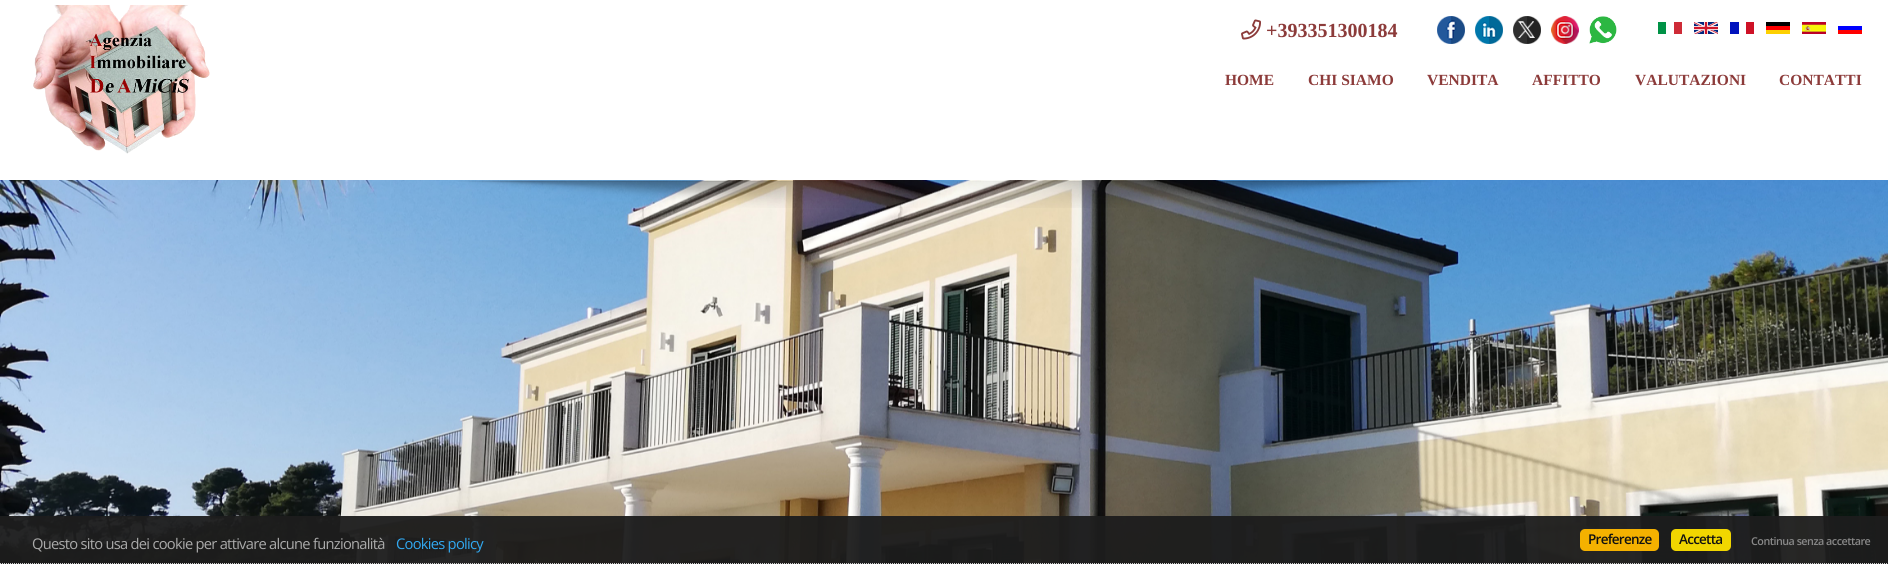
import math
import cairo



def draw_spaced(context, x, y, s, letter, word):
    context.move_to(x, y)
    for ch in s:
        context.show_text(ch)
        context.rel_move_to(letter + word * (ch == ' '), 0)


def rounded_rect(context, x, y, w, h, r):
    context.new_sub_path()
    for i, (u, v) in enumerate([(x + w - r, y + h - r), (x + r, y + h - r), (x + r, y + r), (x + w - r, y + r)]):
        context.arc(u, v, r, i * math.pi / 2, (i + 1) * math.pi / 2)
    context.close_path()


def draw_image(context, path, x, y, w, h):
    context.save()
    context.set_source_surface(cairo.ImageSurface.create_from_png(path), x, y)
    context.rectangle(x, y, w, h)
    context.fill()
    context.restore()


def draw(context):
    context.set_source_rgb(1, 1, 1)
    context.paint()
    draw_image(context, "images/1.png", 33, 5, 177, 149)
    draw_image(context, "images/2.png", 1241, 19, 20, 21)
    draw_image(context, "images/3.png", 1437, 16, 28, 28)
    draw_image(context, "images/4.png", 1475, 16, 28, 28)
    draw_image(context, "images/5.png", 1513, 16, 28, 28)
    draw_image(context, "images/6.png", 1551, 16, 28, 28)
    draw_image(context, "images/7.png", 1589, 16, 28, 28)
    draw_image(context, "images/8.png", 1658, 22, 24, 12)
    draw_image(context, "images/9.png", 1694, 22, 24, 12)
    draw_image(context, "images/10.png", 1730, 22, 24, 12)
    draw_image(context, "images/11.png", 1766, 22, 24, 12)
    draw_image(context, "images/12.png", 1802, 22, 24, 12)
    draw_image(context, "images/13.png", 1838, 26, 24, 8)
    draw_image(context, "images/14.png", 0, 180, 1888, 384)
    draw_image(context, "images/15.png", 458, 180, 975, 28)
    context.set_source_rgba(29 / 255, 29 / 255, 29 / 255, 0.95)
    context.rectangle(0, 516, 1888, 48)
    context.fill()
    context.new_path()
    context.move_to(0, 563.5)
    context.line_to(1888, 563.5)
    context.set_source_rgb(204 / 255, 204 / 255, 204 / 255)
    context.set_line_width(1)
    context.set_dash([1, 1])
    context.stroke()
    context.set_source_rgb(244 / 255, 177 / 255, 0)
    rounded_rect(context, 1580, 529, 79, 22, 5)
    context.fill()
    context.set_source_rgb(241 / 255, 214 / 255, 0)
    rounded_rect(context, 1671, 529, 60, 22, 5)
    context.fill()
    context.select_font_face("Liberation Serif", cairo.FontSlant.NORMAL, cairo.FontWeight.BOLD)
    context.set_font_size(20)
    context.set_source_rgb(140 / 255, 59 / 255, 58 / 255)
    context.move_to(1266, 37)
    context.show_text("+393351300184")
    context.set_font_size(15.5)
    context.move_to(1225, 85)
    context.show_text("HOME")
    context.move_to(1308, 85)
    context.show_text("CHI SIAMO")
    context.move_to(1427, 85)
    context.show_text("VENDITA")
    context.move_to(1532, 85)
    context.show_text("AFFITTO")
    context.move_to(1635, 85)
    context.show_text("VALUTAZIONI")
    context.move_to(1779, 85)
    context.show_text("CONTATTI")
    context.select_font_face("Open Sans")
    context.set_font_size(14.7)
    context.set_source_rgb(170 / 255, 170 / 255, 170 / 255)
    draw_spaced(context, 32, 549, "Questo sito usa dei cookie per attivare alcune funzionalità", -0.73, 0)
    context.set_source_rgb(49 / 255, 168 / 255, 240 / 255)
    draw_spaced(context, 396, 549, "Cookies policy", -0.73, 0)
    context.select_font_face("Open Sans SemiBold")
    context.set_font_size(13.5)
    context.set_source_rgb(17 / 255, 17 / 255, 17 / 255)
    draw_spaced(context, 1588, 544, "Preferenze", -0.75, 0)
    draw_spaced(context, 1679, 544, "Accetta", -0.75, 0)
    context.set_font_size(10.75)
    context.set_source_rgb(136 / 255, 136 / 255, 136 / 255)
    draw_spaced(context, 1751, 545, "Continua senza accettare", -0.5, 0)


surface = cairo.ImageSurface(cairo.Format.RGB24, 1888, 564)
context = cairo.Context(surface)
options = cairo.FontOptions()
options.set_hint_metrics(cairo.HintMetrics.OFF)
options.set_hint_style(cairo.HintStyle.NONE)
context.set_font_options(options)
context.set_miter_limit(4)
draw(context)
surface.write_to_png("out.png")
